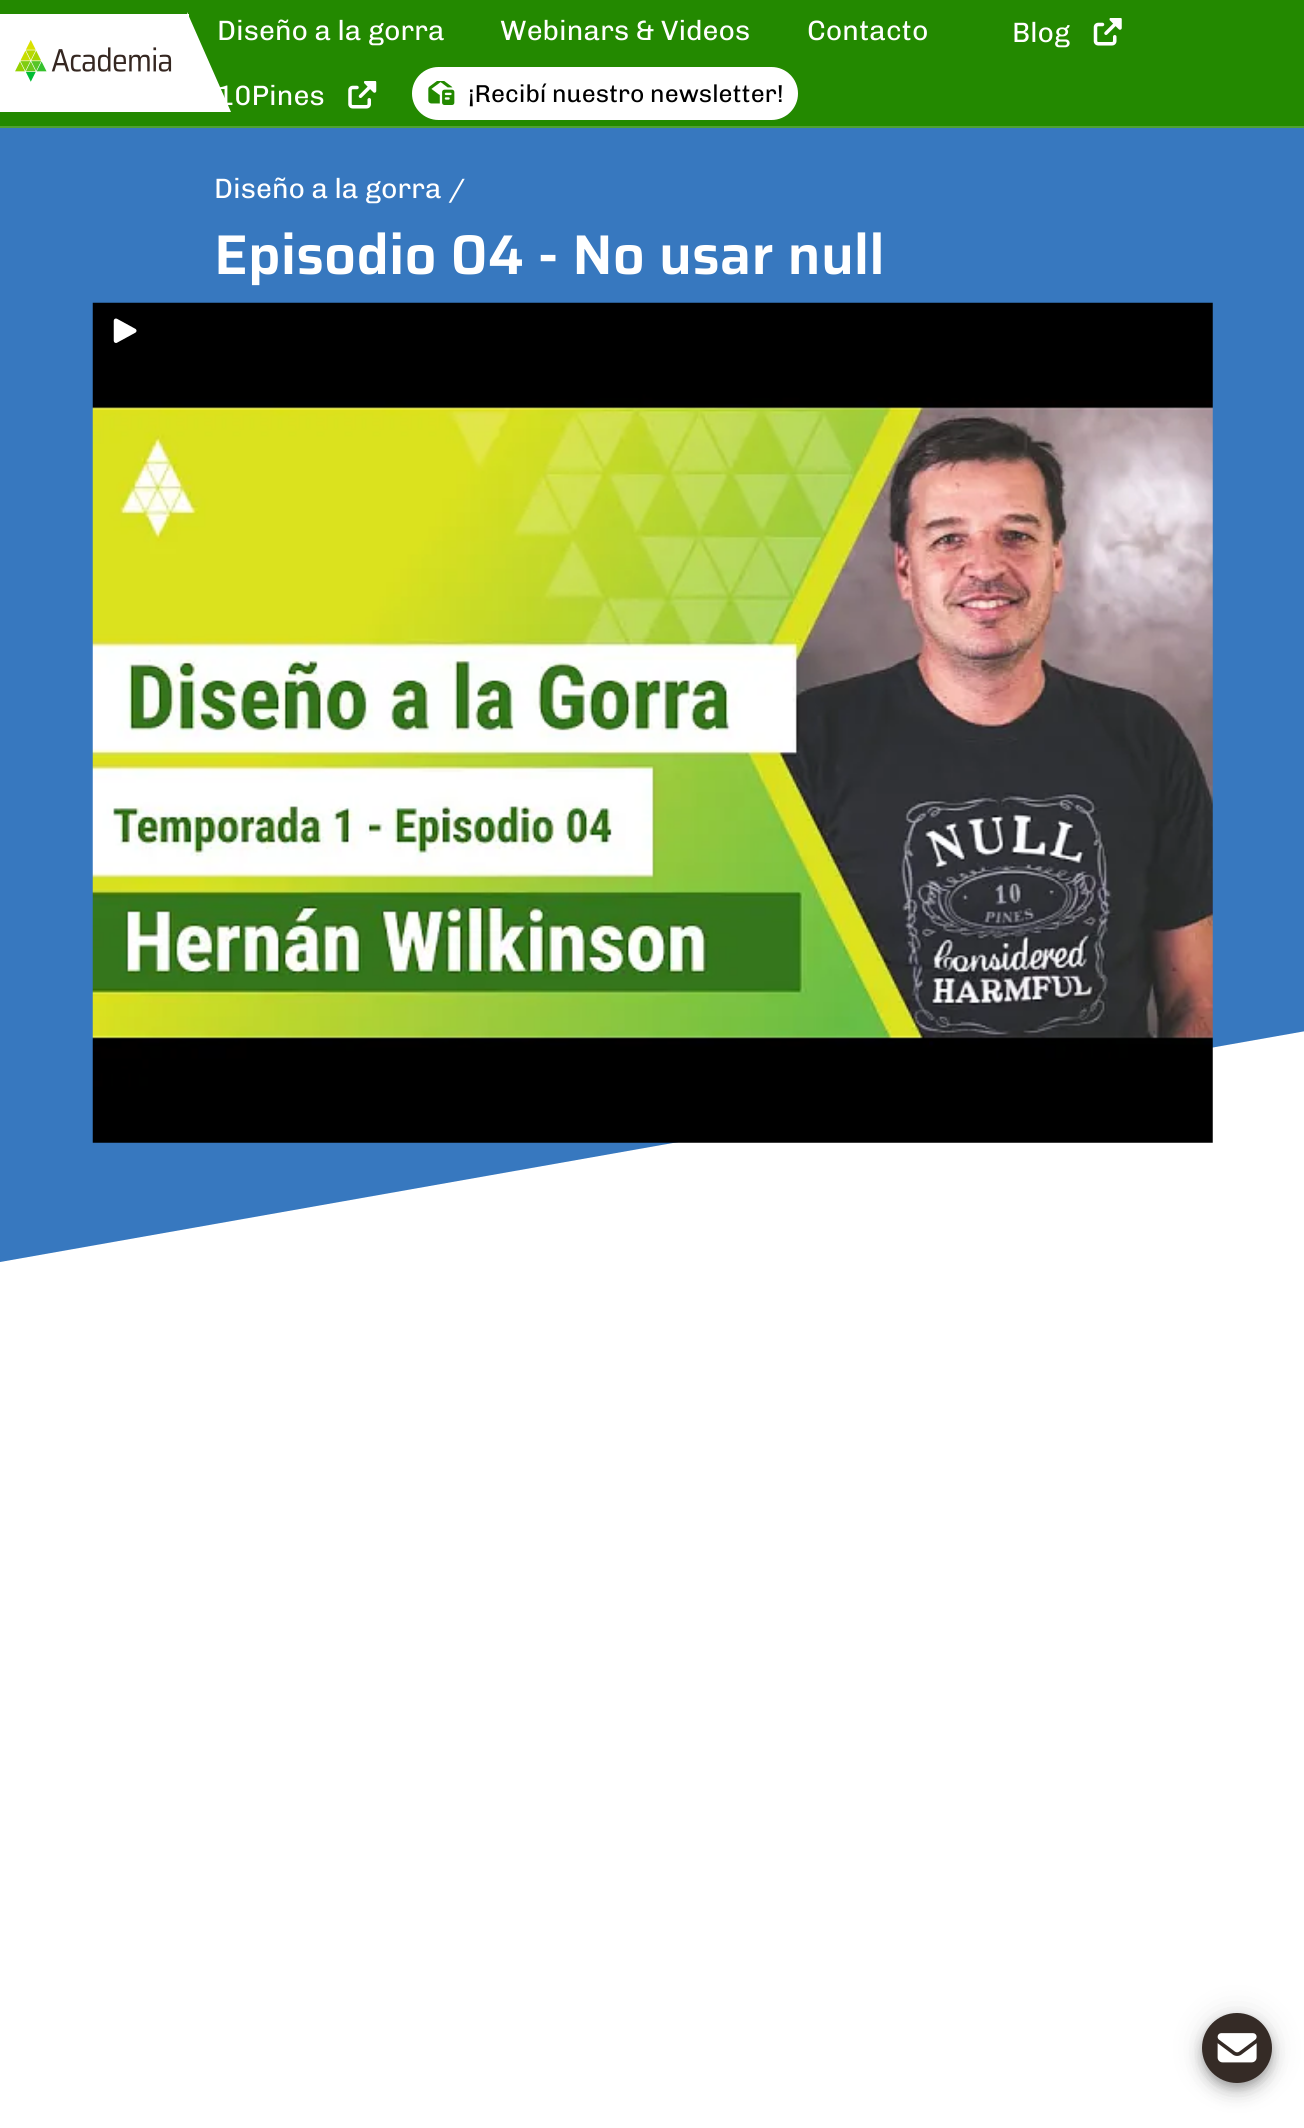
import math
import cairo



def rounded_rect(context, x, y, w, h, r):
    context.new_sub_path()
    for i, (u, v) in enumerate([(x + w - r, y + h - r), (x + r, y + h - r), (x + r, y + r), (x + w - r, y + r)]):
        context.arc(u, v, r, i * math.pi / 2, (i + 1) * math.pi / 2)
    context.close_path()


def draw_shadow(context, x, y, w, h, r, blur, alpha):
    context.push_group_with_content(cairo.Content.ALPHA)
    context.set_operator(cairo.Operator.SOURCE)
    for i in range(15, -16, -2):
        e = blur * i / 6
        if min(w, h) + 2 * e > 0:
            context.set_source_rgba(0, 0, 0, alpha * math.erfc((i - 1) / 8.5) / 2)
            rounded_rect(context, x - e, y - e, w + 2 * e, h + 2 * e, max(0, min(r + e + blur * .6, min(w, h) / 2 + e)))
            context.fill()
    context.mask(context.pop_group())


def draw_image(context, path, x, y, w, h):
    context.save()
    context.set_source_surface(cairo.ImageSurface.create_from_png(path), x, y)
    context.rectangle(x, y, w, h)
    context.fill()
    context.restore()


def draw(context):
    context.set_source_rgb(1, 1, 1)
    context.paint()
    context.set_source_rgb(35 / 255, 137 / 255, 0)
    context.rectangle(0, 0, 1304, 126)
    context.fill()
    context.set_source_rgb(79 / 255, 161 / 255, 51 / 255)
    context.rectangle(0, 126, 1304, 2)
    context.fill()
    context.set_source_rgb(1, 1, 1)
    context.rectangle(0, 14, 189, 98)
    context.fill()
    draw_image(context, "images/1.png", 15, 40, 157, 42)
    context.new_path()
    context.move_to(187, 112)
    context.line_to(187, 12)
    context.line_to(231, 112)
    context.close_path()
    context.fill()
    draw_image(context, "images/2.png", 1093, 18, 29, 28)
    draw_image(context, "images/3.png", 348, 81, 29, 28)
    rounded_rect(context, 410, 65, 390, 57, 28.5)
    context.fill_preserve()
    context.set_source_rgb(35 / 255, 137 / 255, 0)
    context.set_line_width(4)
    context.stroke()
    draw_image(context, "images/4.png", 428, 81, 27, 24)
    context.set_source_rgb(55 / 255, 120 / 255, 191 / 255)
    context.rectangle(0, 128, 1304, 1134)
    context.fill()
    context.set_source_rgb(1, 1, 1)
    context.new_path()
    context.move_to(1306, 1031)
    context.line_to(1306, 1829)
    context.line_to(0, 1829)
    context.line_to(0, 1262)
    context.close_path()
    context.fill()
    draw_image(context, "images/5.png", 92, 302, 1121, 841)
    draw_image(context, "images/6.png", 113, 318, 24, 25)
    context.set_source_rgb(0, 0, 0)
    draw_shadow(context, 1202, 2018, 70, 70, 35, 4.5, 0.2)
    draw_shadow(context, 1202, 2014, 70, 70, 35, 16, 0.12)
    draw_shadow(context, 1202, 2023, 70, 70, 35, 9, 0.14)
    context.set_source_rgb(53 / 255, 43 / 255, 38 / 255)
    context.arc(1237, 2048, 35, 0, 2 * math.pi)
    context.fill()
    draw_image(context, "images/7.png", 1217, 2033, 40, 30)
    context.select_font_face("Chivo Medium")
    context.set_font_size(28)
    context.set_source_rgb(1, 1, 1)
    context.move_to(217, 40)
    context.show_text("Diseño a la gorra")
    context.move_to(500, 40)
    context.show_text("Webinars & Videos")
    context.move_to(807, 40)
    context.show_text("Contacto")
    context.move_to(1012, 42)
    context.show_text("Blog")
    context.move_to(217, 105)
    context.show_text("10Pines")
    context.set_font_size(24.5)
    context.set_source_rgb(0, 0, 0)
    context.move_to(468, 102)
    context.show_text("¡Recibí nuestro newsletter!")
    context.set_font_size(28)
    context.set_source_rgb(1, 1, 1)
    context.move_to(214, 198)
    context.show_text("Diseño a la gorra /")
    context.select_font_face("Saira SemiBold")
    context.set_font_size(56)
    context.move_to(214, 274)
    context.show_text("Episodio 04 - No usar null")


surface = cairo.ImageSurface(cairo.Format.RGB24, 1304, 2128)
context = cairo.Context(surface)
options = cairo.FontOptions()
options.set_hint_metrics(cairo.HintMetrics.OFF)
options.set_hint_style(cairo.HintStyle.NONE)
context.set_font_options(options)
context.set_miter_limit(4)
draw(context)
surface.write_to_png("out.png")
